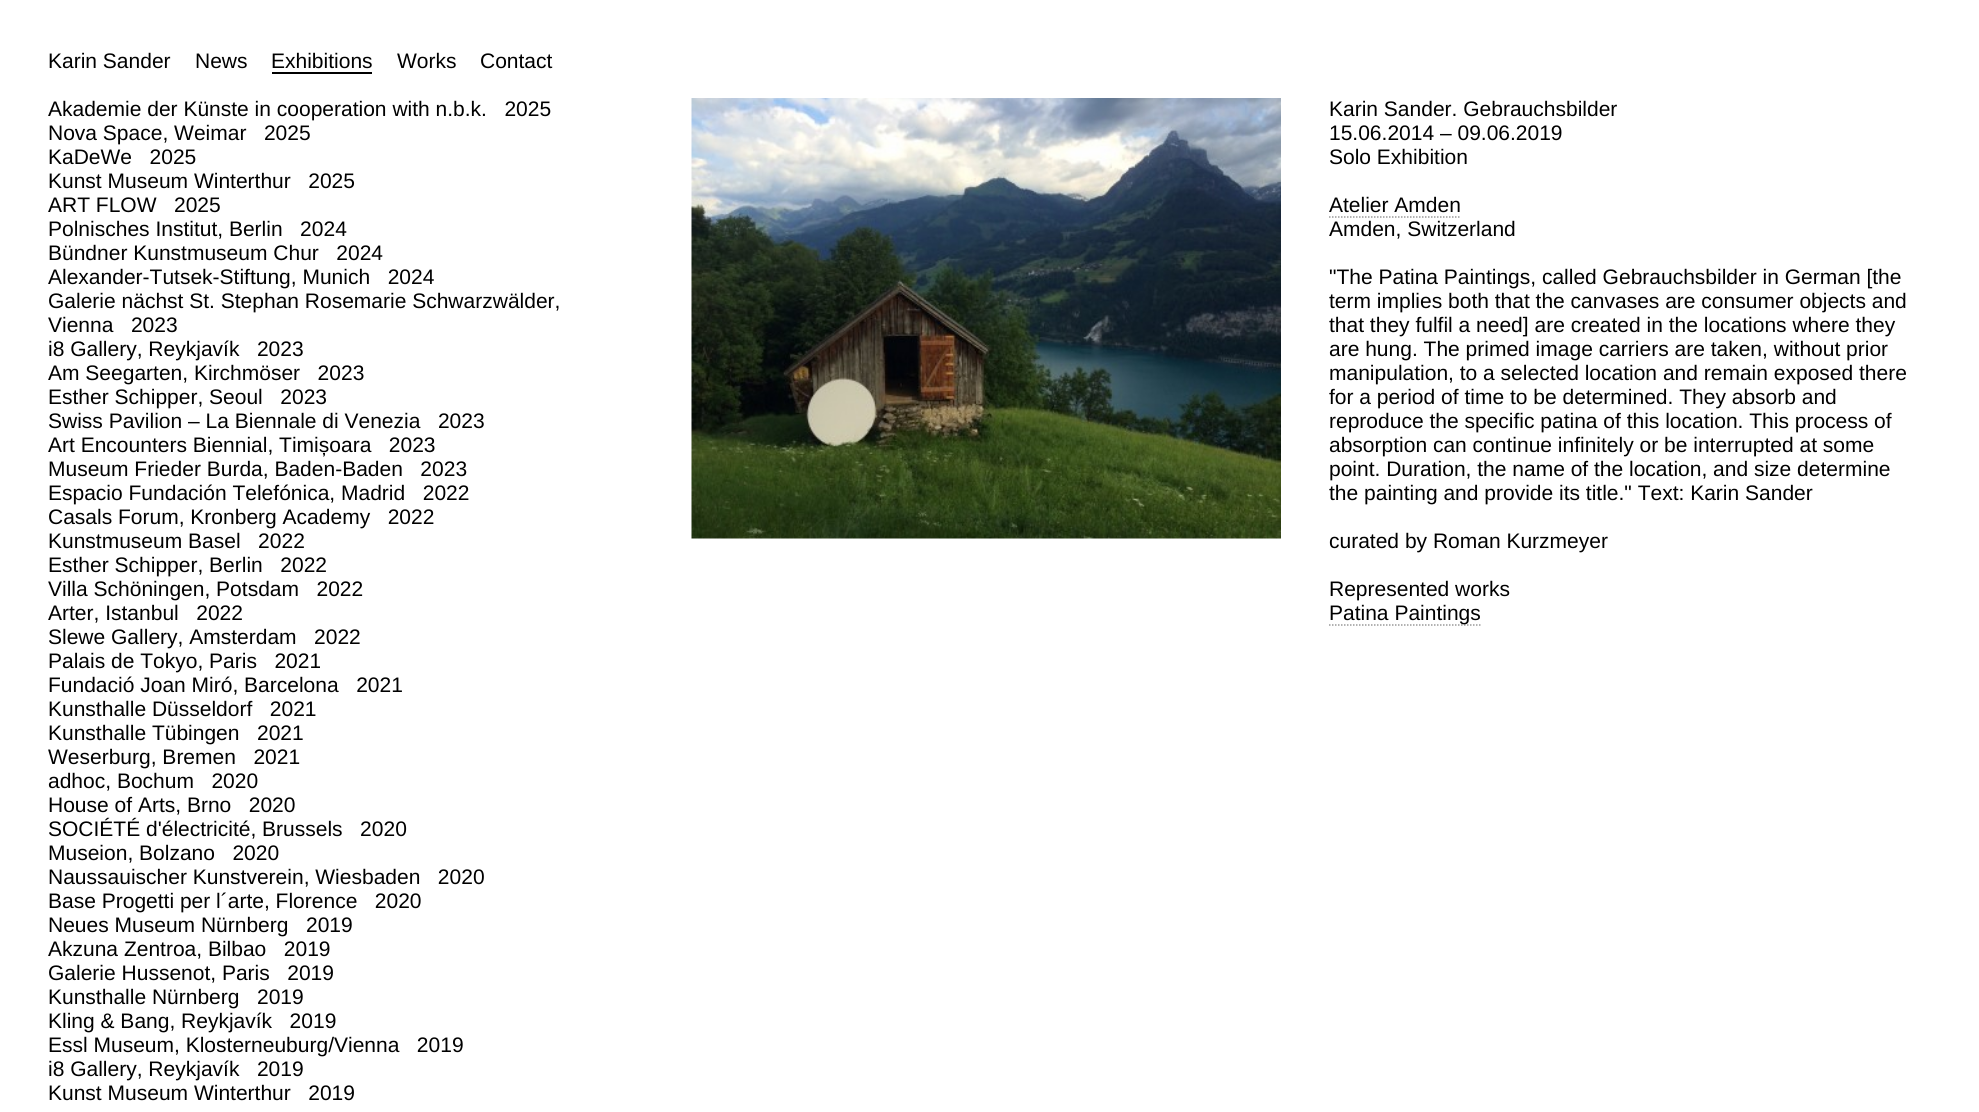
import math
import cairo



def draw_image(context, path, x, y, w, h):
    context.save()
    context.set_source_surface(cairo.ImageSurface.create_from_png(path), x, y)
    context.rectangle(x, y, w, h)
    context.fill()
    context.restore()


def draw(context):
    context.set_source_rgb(1, 1, 1)
    context.paint()
    context.set_source_rgb(0, 0, 0)
    context.rectangle(272, 72, 100, 2)
    context.fill()
    draw_image(context, "images/1.png", 691, 98, 590, 441)
    context.new_path()
    context.move_to(1329, 217)
    context.line_to(1461, 217)
    context.set_source_rgb(153 / 255, 153 / 255, 153 / 255)
    context.set_line_width(1.5)
    context.set_dash([1.5, 1.5])
    context.stroke()
    context.new_path()
    context.move_to(1329, 625)
    context.line_to(1480.5, 625)
    context.stroke()
    context.select_font_face("Liberation Sans")
    context.set_font_size(21)
    context.set_source_rgb(0, 0, 0)
    context.move_to(48, 68)
    context.show_text("Karin Sander")
    context.move_to(195, 68)
    context.show_text("News")
    context.move_to(271, 68)
    context.show_text("Exhibitions")
    context.move_to(397, 68)
    context.show_text("Works")
    context.move_to(480, 68)
    context.show_text("Contact")
    context.move_to(48, 116)
    context.show_text("Akademie der Künste in cooperation with n.b.k.   2025")
    context.move_to(48, 140)
    context.show_text("Nova Space, Weimar   2025")
    context.move_to(48, 164)
    context.show_text("KaDeWe   2025")
    context.move_to(48, 188)
    context.show_text("Kunst Museum Winterthur   2025")
    context.move_to(48, 212)
    context.show_text("ART FLOW   2025")
    context.move_to(48, 236)
    context.show_text("Polnisches Institut, Berlin   2024")
    context.move_to(48, 260)
    context.show_text("Bündner Kunstmuseum Chur   2024")
    context.move_to(48, 284)
    context.show_text("Alexander-Tutsek-Stiftung, Munich   2024")
    context.move_to(48, 308)
    context.show_text("Galerie nächst St. Stephan Rosemarie Schwarzwälder,")
    context.move_to(48, 332)
    context.show_text("Vienna   2023")
    context.move_to(48, 356)
    context.show_text("i8 Gallery, Reykjavík   2023")
    context.move_to(48, 380)
    context.show_text("Am Seegarten, Kirchmöser   2023")
    context.move_to(48, 404)
    context.show_text("Esther Schipper, Seoul   2023")
    context.move_to(48, 428)
    context.show_text("Swiss Pavilion – La Biennale di Venezia   2023")
    context.move_to(48, 452)
    context.show_text("Art Encounters Biennial, Timișoara   2023")
    context.move_to(48, 476)
    context.show_text("Museum Frieder Burda, Baden-Baden   2023")
    context.move_to(48, 500)
    context.show_text("Espacio Fundación Telefónica, Madrid   2022")
    context.move_to(48, 524)
    context.show_text("Casals Forum, Kronberg Academy   2022")
    context.move_to(48, 548)
    context.show_text("Kunstmuseum Basel   2022")
    context.move_to(48, 572)
    context.show_text("Esther Schipper, Berlin   2022")
    context.move_to(48, 596)
    context.show_text("Villa Schöningen, Potsdam   2022")
    context.move_to(48, 620)
    context.show_text("Arter, Istanbul   2022")
    context.move_to(48, 644)
    context.show_text("Slewe Gallery, Amsterdam   2022")
    context.move_to(48, 668)
    context.show_text("Palais de Tokyo, Paris   2021")
    context.move_to(48, 692)
    context.show_text("Fundació Joan Miró, Barcelona   2021")
    context.move_to(48, 716)
    context.show_text("Kunsthalle Düsseldorf   2021")
    context.move_to(48, 740)
    context.show_text("Kunsthalle Tübingen   2021")
    context.move_to(48, 764)
    context.show_text("Weserburg, Bremen   2021")
    context.move_to(48, 788)
    context.show_text("adhoc, Bochum   2020")
    context.move_to(48, 812)
    context.show_text("House of Arts, Brno   2020")
    context.move_to(48, 836)
    context.show_text("SOCIÉTÉ d'électricité, Brussels   2020")
    context.move_to(48, 860)
    context.show_text("Museion, Bolzano   2020")
    context.move_to(48, 884)
    context.show_text("Naussauischer Kunstverein, Wiesbaden   2020")
    context.move_to(48, 908)
    context.show_text("Base Progetti per l´arte, Florence   2020")
    context.move_to(48, 932)
    context.show_text("Neues Museum Nürnberg   2019")
    context.move_to(48, 956)
    context.show_text("Akzuna Zentroa, Bilbao   2019")
    context.move_to(48, 980)
    context.show_text("Galerie Hussenot, Paris   2019")
    context.move_to(48, 1004)
    context.show_text("Kunsthalle Nürnberg   2019")
    context.move_to(48, 1028)
    context.show_text("Kling & Bang, Reykjavík   2019")
    context.move_to(48, 1052)
    context.show_text("Essl Museum, Klosterneuburg/Vienna   2019")
    context.move_to(48, 1076)
    context.show_text("i8 Gallery, Reykjavík   2019")
    context.move_to(48, 1100)
    context.show_text("Kunst Museum Winterthur   2019")
    context.move_to(1329, 116)
    context.show_text("Karin Sander. Gebrauchsbilder")
    context.move_to(1329, 140)
    context.show_text("15.06.2014 – 09.06.2019")
    context.move_to(1329, 164)
    context.show_text("Solo Exhibition")
    context.move_to(1329, 212)
    context.show_text("Atelier Amden")
    context.move_to(1329, 236)
    context.show_text("Amden, Switzerland")
    context.move_to(1329, 284)
    context.show_text("\"The Patina Paintings, called Gebrauchsbilder in German [the")
    context.move_to(1329, 308)
    context.show_text("term implies both that the canvases are consumer objects and")
    context.move_to(1329, 332)
    context.show_text("that they fulfil a need] are created in the locations where they")
    context.move_to(1329, 356)
    context.show_text("are hung. The primed image carriers are taken, without prior")
    context.move_to(1329, 380)
    context.show_text("manipulation, to a selected location and remain exposed there")
    context.move_to(1329, 404)
    context.show_text("for a period of time to be determined. They absorb and")
    context.move_to(1329, 428)
    context.show_text("reproduce the specific patina of this location. This process of")
    context.move_to(1329, 452)
    context.show_text("absorption can continue infinitely or be interrupted at some")
    context.move_to(1329, 476)
    context.show_text("point. Duration, the name of the location, and size determine")
    context.move_to(1329, 500)
    context.show_text("the painting and provide its title.\" Text: Karin Sander")
    context.move_to(1329, 548)
    context.show_text("curated by Roman Kurzmeyer")
    context.move_to(1329, 596)
    context.show_text("Represented works")
    context.move_to(1329, 620)
    context.show_text("Patina Paintings")


surface = cairo.ImageSurface(cairo.Format.RGB24, 1979, 1112)
context = cairo.Context(surface)
options = cairo.FontOptions()
options.set_hint_metrics(cairo.HintMetrics.OFF)
options.set_hint_style(cairo.HintStyle.NONE)
context.set_font_options(options)
context.set_miter_limit(4)
draw(context)
surface.write_to_png("out.png")
